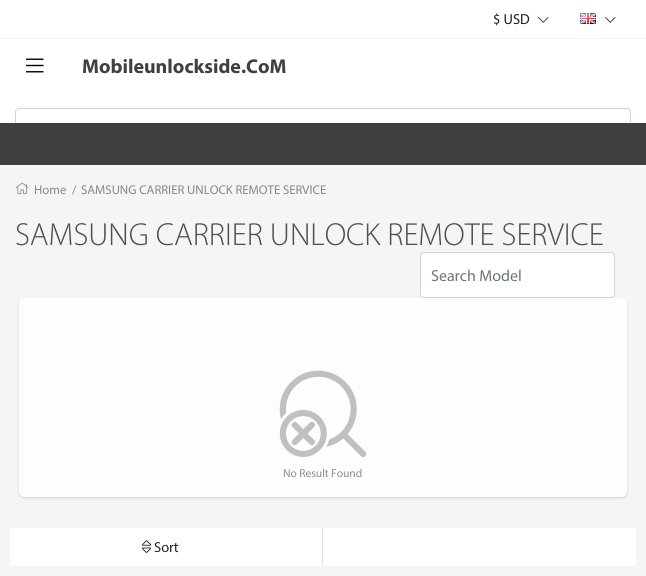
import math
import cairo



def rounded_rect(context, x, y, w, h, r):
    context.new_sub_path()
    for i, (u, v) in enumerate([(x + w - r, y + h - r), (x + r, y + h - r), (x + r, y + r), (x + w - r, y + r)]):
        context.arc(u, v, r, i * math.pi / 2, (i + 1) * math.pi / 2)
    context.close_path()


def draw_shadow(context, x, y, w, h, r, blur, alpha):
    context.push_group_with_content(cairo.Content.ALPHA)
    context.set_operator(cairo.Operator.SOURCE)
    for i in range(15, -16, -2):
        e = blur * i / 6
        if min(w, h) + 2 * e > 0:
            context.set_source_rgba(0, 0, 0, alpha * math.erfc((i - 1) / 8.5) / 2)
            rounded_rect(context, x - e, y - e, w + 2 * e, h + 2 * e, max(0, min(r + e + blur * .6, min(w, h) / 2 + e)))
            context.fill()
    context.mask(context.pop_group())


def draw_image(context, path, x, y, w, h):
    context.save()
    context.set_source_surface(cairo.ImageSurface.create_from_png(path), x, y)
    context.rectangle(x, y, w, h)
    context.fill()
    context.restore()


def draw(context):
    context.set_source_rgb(245 / 255, 245 / 255, 245 / 255)
    context.paint()
    context.set_source_rgb(1, 1, 1)
    context.rectangle(0, 0, 646, 123)
    context.fill()
    context.set_source_rgb(246 / 255, 246 / 255, 246 / 255)
    context.rectangle(0, 38, 646, 1)
    context.fill()
    draw_image(context, "images/1.png", 538, 17, 11, 6)
    draw_image(context, "images/2.png", 580, 13, 16, 11)
    draw_image(context, "images/1.png", 605, 17, 11, 6)
    draw_image(context, "images/3.png", 26, 58, 18, 15)
    context.set_source_rgb(64 / 255, 64 / 255, 64 / 255)
    context.rectangle(0, 123, 646, 42)
    context.fill()
    context.save()
    context.rectangle(0, 93, 646, 30)
    context.clip()
    rounded_rect(context, 15.5, 108.5, 615, 41, 3.5)
    context.set_source_rgb(206 / 255, 212 / 255, 218 / 255)
    context.set_line_width(1)
    context.stroke()
    context.restore()
    draw_image(context, "images/4.png", 15, 182, 14, 12)
    context.set_source_rgb(1, 1, 1)
    rounded_rect(context, 420.5, 252.5, 194, 45, 3.5)
    context.fill_preserve()
    context.set_source_rgb(206 / 255, 212 / 255, 218 / 255)
    context.set_line_width(1)
    context.stroke()
    context.set_source_rgb(0, 0, 0)
    draw_shadow(context, 19, 299, 608, 199, 5, 1, 0.16)
    context.set_source_rgb(253 / 255, 253 / 255, 253 / 255)
    rounded_rect(context, 19, 298, 608, 199, 5)
    context.fill()
    draw_image(context, "images/5.png", 279, 370, 88, 87)
    context.set_source_rgb(1, 1, 1)
    context.rectangle(10, 528, 626, 38)
    context.fill()
    context.set_source_rgb(222 / 255, 226 / 255, 230 / 255)
    context.rectangle(322, 528, 1, 38)
    context.fill()
    draw_image(context, "images/6.png", 142, 540, 9, 13)
    context.select_font_face("Myriad")
    context.set_font_size(14.5)
    context.set_source_rgb(26 / 255, 26 / 255, 26 / 255)
    context.move_to(493, 24)
    context.show_text("$ USD")
    context.select_font_face("Myriad", cairo.FontSlant.NORMAL, cairo.FontWeight.BOLD)
    context.set_font_size(20)
    context.set_source_rgb(64 / 255, 64 / 255, 64 / 255)
    context.move_to(82, 73)
    context.show_text("Mobileunlockside.CoM")
    context.select_font_face("Myriad")
    context.set_font_size(12.75)
    context.set_source_rgb(136 / 255, 136 / 255, 136 / 255)
    context.move_to(34, 194)
    context.show_text("Home")
    context.move_to(72, 194)
    context.show_text("/")
    context.move_to(81, 194)
    context.show_text("SAMSUNG CARRIER UNLOCK REMOTE SERVICE")
    context.select_font_face("Myriad Light")
    context.set_font_size(32)
    context.set_source_rgb(75 / 255, 79 / 255, 82 / 255)
    context.move_to(15, 245)
    context.show_text("SAMSUNG CARRIER UNLOCK REMOTE SERVICE")
    context.select_font_face("Myriad")
    context.set_font_size(16)
    context.set_source_rgb(108 / 255, 117 / 255, 125 / 255)
    context.move_to(431, 281)
    context.show_text("Search Model")
    context.set_font_size(11.5)
    context.set_source_rgb(135 / 255, 143 / 255, 149 / 255)
    context.move_to(283, 477)
    context.show_text("No Result Found")
    context.set_font_size(14.5)
    context.set_source_rgb(33 / 255, 37 / 255, 41 / 255)
    context.move_to(154, 552)
    context.show_text("Sort")


surface = cairo.ImageSurface(cairo.Format.RGB24, 646, 576)
context = cairo.Context(surface)
options = cairo.FontOptions()
options.set_hint_metrics(cairo.HintMetrics.OFF)
options.set_hint_style(cairo.HintStyle.NONE)
context.set_font_options(options)
context.set_miter_limit(4)
draw(context)
surface.write_to_png("out.png")
